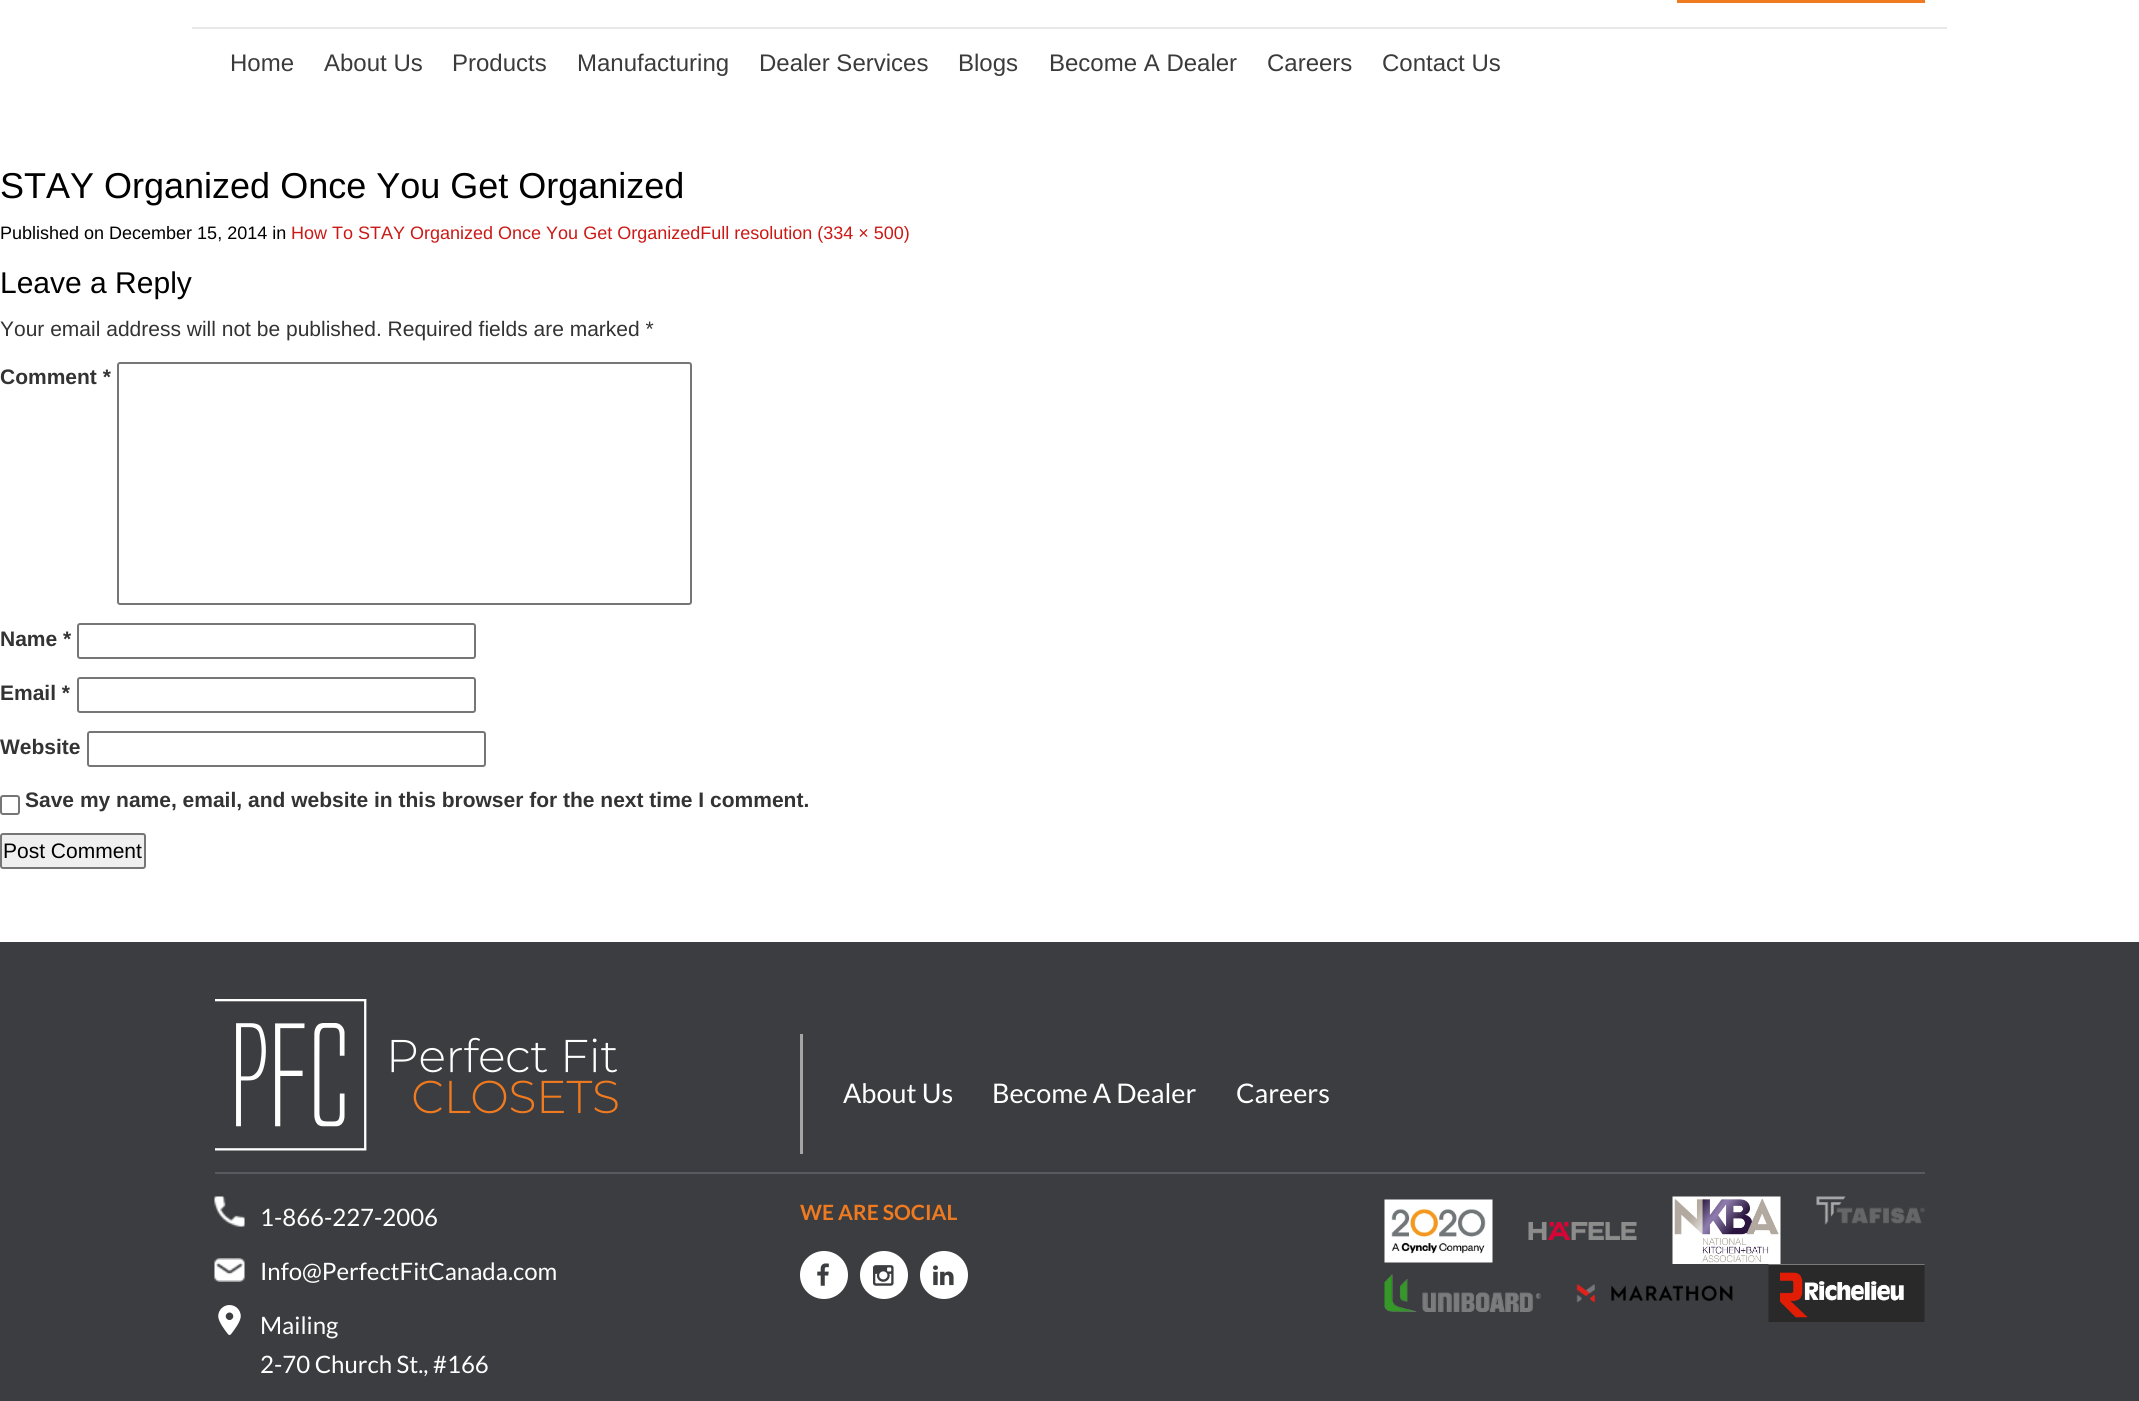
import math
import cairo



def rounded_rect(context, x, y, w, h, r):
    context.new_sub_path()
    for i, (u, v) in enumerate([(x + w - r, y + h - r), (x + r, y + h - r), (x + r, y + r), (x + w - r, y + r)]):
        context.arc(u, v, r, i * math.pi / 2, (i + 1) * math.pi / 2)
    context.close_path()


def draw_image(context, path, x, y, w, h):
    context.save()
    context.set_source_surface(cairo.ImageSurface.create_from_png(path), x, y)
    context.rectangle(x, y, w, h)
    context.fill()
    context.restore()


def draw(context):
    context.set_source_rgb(1, 1, 1)
    context.paint()
    context.set_source_rgb(240 / 255, 122 / 255, 31 / 255)
    context.rectangle(1677, 0, 248, 3)
    context.fill()
    context.set_source_rgb(232 / 255, 232 / 255, 232 / 255)
    context.rectangle(192, 27, 1755, 2)
    context.fill()
    rounded_rect(context, 118, 363, 573, 241, 2)
    context.set_source_rgb(118 / 255, 118 / 255, 118 / 255)
    context.stroke()
    rounded_rect(context, 78, 624, 397, 34, 2)
    context.stroke()
    rounded_rect(context, 78, 678, 397, 34, 2)
    context.stroke()
    rounded_rect(context, 88, 732, 397, 34, 2)
    context.stroke()
    rounded_rect(context, 1, 796, 18, 18, 2)
    context.stroke()
    context.set_source_rgb(239 / 255, 239 / 255, 239 / 255)
    rounded_rect(context, 1, 834, 144, 34, 2)
    context.fill_preserve()
    context.set_source_rgb(118 / 255, 118 / 255, 118 / 255)
    context.stroke()
    context.set_source_rgb(60 / 255, 61 / 255, 64 / 255)
    context.rectangle(0, 942, 2139, 459)
    context.fill()
    draw_image(context, "images/1.png", 215, 999, 403, 152)
    context.set_source_rgb(165 / 255, 165 / 255, 165 / 255)
    context.rectangle(800, 1034, 3, 120)
    context.fill()
    context.set_source_rgb(88 / 255, 90 / 255, 95 / 255)
    context.rectangle(215, 1172, 1710, 2)
    context.fill()
    draw_image(context, "images/2.png", 214, 1196, 31, 31)
    draw_image(context, "images/3.png", 214, 1258, 31, 24)
    draw_image(context, "images/4.png", 218, 1305, 23, 30)
    context.set_source_rgb(1, 1, 1)
    context.arc(824, 1275, 24, 0, 2 * math.pi)
    context.fill()
    draw_image(context, "images/5.png", 817, 1263, 12, 23)
    context.arc(884, 1275, 24, 0, 2 * math.pi)
    context.fill()
    draw_image(context, "images/6.png", 873, 1265, 21, 21)
    context.arc(944, 1275, 24, 0, 2 * math.pi)
    context.fill()
    draw_image(context, "images/7.png", 933, 1265, 21, 21)
    draw_image(context, "images/8.png", 1384, 1199, 109, 64)
    draw_image(context, "images/9.png", 1528, 1222, 109, 18)
    draw_image(context, "images/10.png", 1672, 1196, 109, 68)
    draw_image(context, "images/11.png", 1816, 1196, 109, 29)
    draw_image(context, "images/12.png", 1384, 1274, 157, 38)
    draw_image(context, "images/13.png", 1576, 1284, 157, 19)
    draw_image(context, "images/14.png", 1768, 1264, 157, 58)
    context.select_font_face("Liberation Sans")
    context.set_font_size(24)
    context.set_source_rgb(59 / 255, 59 / 255, 59 / 255)
    context.move_to(230, 71)
    context.show_text("Home")
    context.move_to(324, 71)
    context.show_text("About Us")
    context.move_to(452, 71)
    context.show_text("Products")
    context.move_to(577, 71)
    context.show_text("Manufacturing")
    context.move_to(759, 71)
    context.show_text("Dealer Services")
    context.move_to(958, 71)
    context.show_text("Blogs")
    context.move_to(1049, 71)
    context.show_text("Become A Dealer")
    context.move_to(1267, 71)
    context.show_text("Careers")
    context.move_to(1382, 71)
    context.show_text("Contact Us")
    context.set_font_size(36)
    context.set_source_rgb(0, 0, 0)
    context.move_to(0, 198)
    context.show_text("STAY Organized Once You Get Organized")
    context.set_font_size(18)
    context.move_to(0, 239)
    context.show_text("Published on December 15, 2014 in")
    context.set_source_rgb(203 / 255, 25 / 255, 22 / 255)
    context.move_to(291, 239)
    context.show_text("How To STAY Organized Once You Get OrganizedFull resolution (334 × 500)")
    context.set_font_size(30)
    context.set_source_rgb(0, 0, 0)
    context.move_to(0, 293)
    context.show_text("Leave a Reply")
    context.set_font_size(21)
    context.set_source_rgb(51 / 255, 51 / 255, 51 / 255)
    context.move_to(0, 336)
    context.show_text("Your email address will not be published. Required fields are marked *")
    context.select_font_face("Liberation Sans", cairo.FontSlant.NORMAL, cairo.FontWeight.BOLD)
    context.move_to(0, 384)
    context.show_text("Comment *")
    context.move_to(0, 646)
    context.show_text("Name *")
    context.move_to(0, 700)
    context.show_text("Email *")
    context.move_to(0, 754)
    context.show_text("Website")
    context.move_to(25, 807)
    context.show_text("Save my name, email, and website in this browser for the next time I comment.")
    context.select_font_face("Liberation Sans")
    context.set_source_rgb(0, 0, 0)
    context.move_to(3, 858)
    context.show_text("Post Comment")
    context.select_font_face("Lato")
    context.set_font_size(27)
    context.set_source_rgb(1, 1, 1)
    context.move_to(843, 1103)
    context.show_text("About Us")
    context.move_to(992, 1103)
    context.show_text("Become A Dealer")
    context.move_to(1236, 1103)
    context.show_text("Careers")
    context.set_font_size(24)
    context.move_to(260, 1226)
    context.show_text("1-866-227-2006")
    context.move_to(260, 1280)
    context.show_text("Info@PerfectFitCanada.com")
    context.move_to(260, 1334)
    context.show_text("Mailing")
    context.move_to(260, 1373)
    context.show_text("2-70 Church St., #166")
    context.select_font_face("Lato", cairo.FontSlant.NORMAL, cairo.FontWeight.BOLD)
    context.set_font_size(21)
    context.set_source_rgb(240 / 255, 122 / 255, 31 / 255)
    context.move_to(800, 1220)
    context.show_text("WE ARE SOCIAL")


surface = cairo.ImageSurface(cairo.Format.RGB24, 2139, 1401)
context = cairo.Context(surface)
options = cairo.FontOptions()
options.set_hint_metrics(cairo.HintMetrics.OFF)
options.set_hint_style(cairo.HintStyle.NONE)
context.set_font_options(options)
context.set_miter_limit(4)
draw(context)
surface.write_to_png("out.png")
